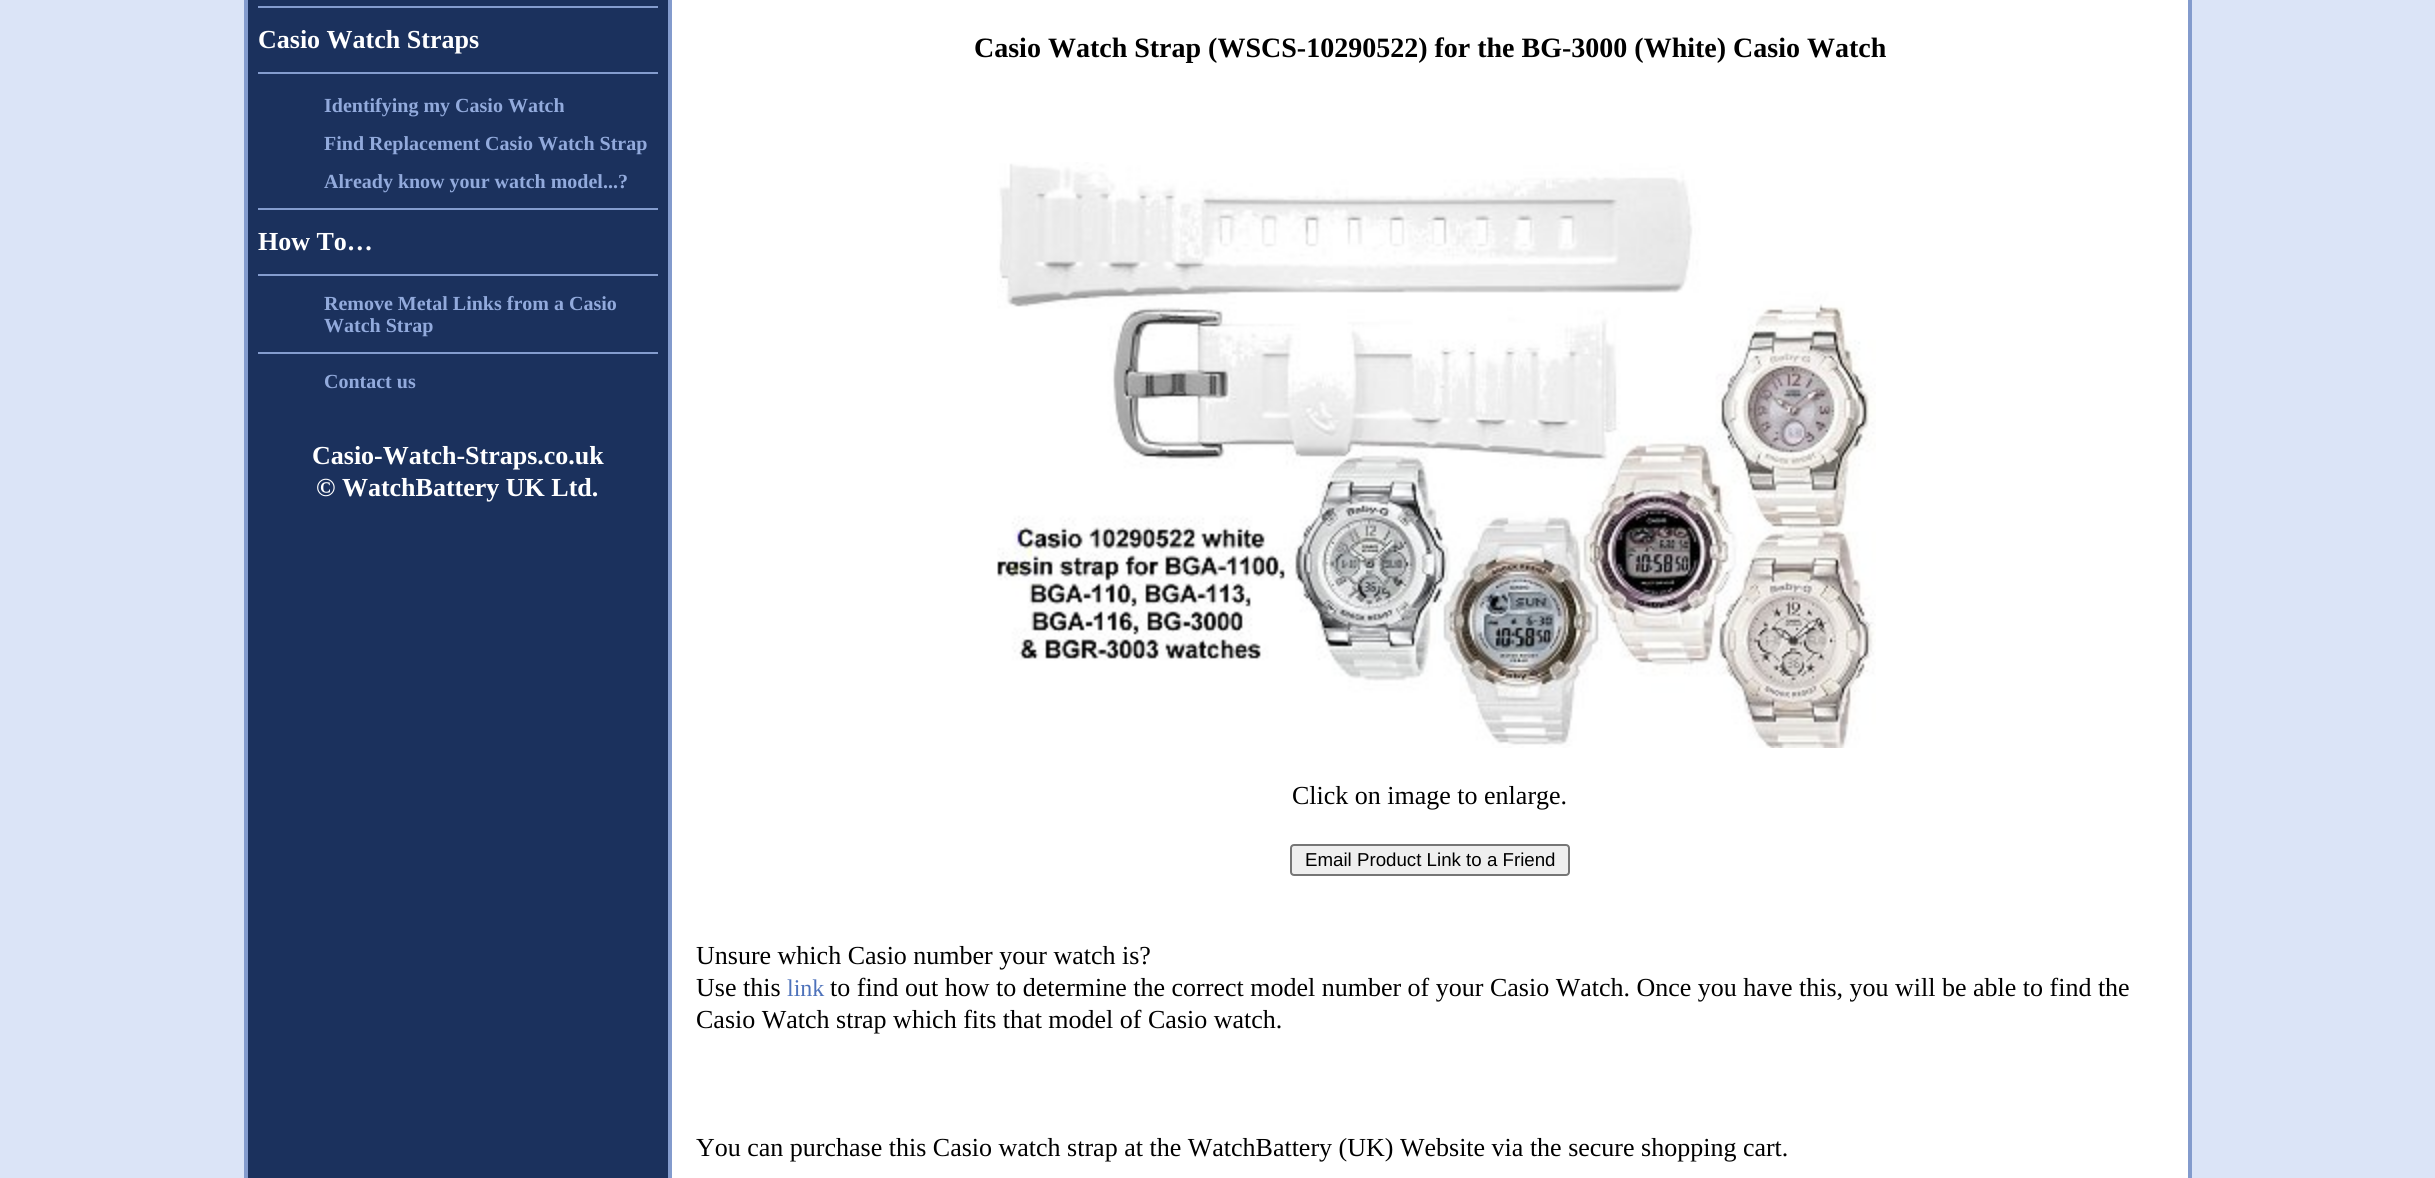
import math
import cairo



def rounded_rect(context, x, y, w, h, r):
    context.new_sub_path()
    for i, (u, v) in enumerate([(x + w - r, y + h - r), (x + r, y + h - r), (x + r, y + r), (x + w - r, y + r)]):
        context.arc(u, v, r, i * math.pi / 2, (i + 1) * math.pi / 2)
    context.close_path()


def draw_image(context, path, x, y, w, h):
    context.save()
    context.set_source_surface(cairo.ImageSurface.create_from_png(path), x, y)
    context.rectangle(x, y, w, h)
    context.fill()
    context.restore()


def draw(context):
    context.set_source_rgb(219 / 255, 228 / 255, 247 / 255)
    context.paint()
    context.set_source_rgb(131 / 255, 155 / 255, 205 / 255)
    context.rectangle(244, 0, 1948, 1178)
    context.fill()
    context.set_source_rgb(27 / 255, 49 / 255, 93 / 255)
    context.rectangle(248, 0, 420, 1178)
    context.fill()
    context.set_source_rgb(132 / 255, 156 / 255, 206 / 255)
    context.rectangle(258, 6, 400, 2)
    context.fill()
    context.rectangle(258, 72, 400, 2)
    context.fill()
    context.rectangle(258, 208, 400, 2)
    context.fill()
    context.rectangle(258, 274, 400, 2)
    context.fill()
    context.rectangle(258, 352, 400, 2)
    context.fill()
    context.set_source_rgb(1, 1, 1)
    context.rectangle(672, 0, 1516, 1178)
    context.fill()
    draw_image(context, "images/1.png", 997, 162, 879, 586)
    context.set_source_rgb(239 / 255, 239 / 255, 239 / 255)
    rounded_rect(context, 1291, 845, 278, 30, 3)
    context.fill_preserve()
    context.set_source_rgb(118 / 255, 118 / 255, 118 / 255)
    context.stroke()
    context.select_font_face("Liberation Serif", cairo.FontSlant.NORMAL, cairo.FontWeight.BOLD)
    context.set_font_size(26)
    context.set_source_rgb(1, 1, 1)
    context.move_to(258, 48)
    context.show_text("Casio Watch Straps")
    context.set_font_size(20)
    context.set_source_rgb(146 / 255, 170 / 255, 220 / 255)
    context.move_to(324, 112)
    context.show_text("Identifying my Casio Watch")
    context.move_to(324, 150)
    context.show_text("Find Replacement Casio Watch Strap")
    context.move_to(324, 188)
    context.show_text("Already know your watch model...?")
    context.set_font_size(26)
    context.set_source_rgb(1, 1, 1)
    context.move_to(258, 250)
    context.show_text("How To…")
    context.set_font_size(20)
    context.set_source_rgb(146 / 255, 170 / 255, 220 / 255)
    context.move_to(324, 310)
    context.show_text("Remove Metal Links from a Casio")
    context.move_to(324, 332)
    context.show_text("Watch Strap")
    context.move_to(324, 388)
    context.show_text("Contact us")
    context.set_font_size(26)
    context.set_source_rgb(1, 1, 1)
    context.move_to(312, 464)
    context.show_text("Casio-Watch-Straps.co.uk")
    context.move_to(316, 496)
    context.show_text("© WatchBattery UK Ltd.")
    context.set_font_size(28)
    context.set_source_rgb(0, 0, 0)
    context.move_to(974, 57)
    context.show_text("Casio Watch Strap (WSCS-10290522) for the BG-3000 (White) Casio Watch")
    context.select_font_face("Liberation Serif")
    context.set_font_size(26)
    context.move_to(1292, 804)
    context.show_text("Click on image to enlarge.")
    context.select_font_face("Liberation Sans")
    context.set_font_size(18.7)
    context.move_to(1305, 866)
    context.show_text("Email Product Link to a Friend")
    context.select_font_face("Liberation Serif")
    context.set_font_size(26)
    context.move_to(696, 964)
    context.show_text("Unsure which Casio number your watch is?")
    context.move_to(696, 996)
    context.show_text("Use this")
    context.set_font_size(24)
    context.set_source_rgb(78 / 255, 114 / 255, 186 / 255)
    context.move_to(787, 996)
    context.show_text("link")
    context.set_font_size(26)
    context.set_source_rgb(0, 0, 0)
    context.move_to(830, 996)
    context.show_text("to find out how to determine the correct model number of your Casio Watch. Once you have this, you will be able to find the")
    context.move_to(696, 1028)
    context.show_text("Casio Watch strap which fits that model of Casio watch.")
    context.move_to(696, 1156)
    context.show_text("You can purchase this Casio watch strap at the WatchBattery (UK) Website via the secure shopping cart.")


surface = cairo.ImageSurface(cairo.Format.RGB24, 2435, 1178)
context = cairo.Context(surface)
options = cairo.FontOptions()
options.set_hint_metrics(cairo.HintMetrics.OFF)
options.set_hint_style(cairo.HintStyle.NONE)
context.set_font_options(options)
context.set_miter_limit(4)
draw(context)
surface.write_to_png("out.png")
